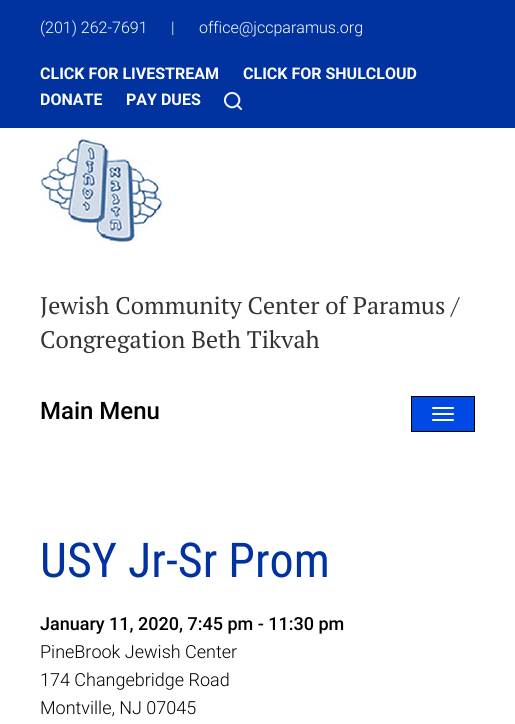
import math
import cairo



def rounded_rect(context, x, y, w, h, r):
    context.new_sub_path()
    for i, (u, v) in enumerate([(x + w - r, y + h - r), (x + r, y + h - r), (x + r, y + r), (x + w - r, y + r)]):
        context.arc(u, v, r, i * math.pi / 2, (i + 1) * math.pi / 2)
    context.close_path()


def draw_image(context, path, x, y, w, h):
    context.save()
    context.set_source_surface(cairo.ImageSurface.create_from_png(path), x, y)
    context.rectangle(x, y, w, h)
    context.fill()
    context.restore()


def draw(context):
    context.set_source_rgb(0, 51 / 255, 160 / 255)
    context.paint()
    draw_image(context, "images/1.png", 224, 92, 18, 18)
    context.set_source_rgb(1, 1, 1)
    context.rectangle(0, 128, 515, 596)
    context.fill()
    draw_image(context, "images/2.png", 40, 138, 123, 104)
    context.set_source_rgb(0, 73 / 255, 228 / 255)
    context.rectangle(411.5, 396.5, 63, 35)
    context.fill_preserve()
    context.set_source_rgb(0, 0, 0)
    context.set_line_width(1)
    context.stroke()
    context.set_source_rgb(1, 1, 1)
    rounded_rect(context, 432, 407, 22, 2, 1)
    context.fill()
    rounded_rect(context, 432, 413, 22, 2, 1)
    context.fill()
    rounded_rect(context, 432, 419, 22, 2, 1)
    context.fill()
    context.select_font_face("Roboto Light")
    context.set_font_size(16)
    context.move_to(40, 33)
    context.show_text("(201) 262-7691")
    context.move_to(171, 33)
    context.show_text("|")
    context.move_to(199, 33)
    context.show_text("office@jccparamus.org")
    context.select_font_face("Roboto", cairo.FontSlant.NORMAL, cairo.FontWeight.BOLD)
    context.move_to(40, 79)
    context.show_text("CLICK FOR LIVESTREAM")
    context.move_to(243, 79)
    context.show_text("CLICK FOR SHULCLOUD")
    context.move_to(40, 105)
    context.show_text("DONATE")
    context.move_to(126, 105)
    context.show_text("PAY DUES")
    context.select_font_face("PT Serif")
    context.set_font_size(24)
    context.set_source_rgb(51 / 255, 51 / 255, 51 / 255)
    context.move_to(40, 314)
    context.show_text("Jewish Community Center of Paramus /")
    context.move_to(40, 348)
    context.show_text("Congregation Beth Tikvah")
    context.select_font_face("Roboto Medium")
    context.set_source_rgb(0, 0, 0)
    context.move_to(40, 419)
    context.show_text("Main Menu")
    context.select_font_face("Roboto Condensed")
    context.set_font_size(48)
    context.set_source_rgb(0, 51 / 255, 160 / 255)
    context.move_to(40, 577)
    context.show_text("USY Jr-Sr Prom")
    context.select_font_face("Roboto Medium")
    context.set_font_size(18)
    context.set_source_rgb(0, 0, 0)
    context.move_to(40, 630)
    context.show_text("January 11, 2020, 7:45 pm - 11:30 pm")
    context.select_font_face("Roboto Light")
    context.move_to(40, 658)
    context.show_text("PineBrook Jewish Center")
    context.move_to(40, 686)
    context.show_text("174 Changebridge Road")
    context.move_to(40, 714)
    context.show_text("Montville, NJ 07045")


surface = cairo.ImageSurface(cairo.Format.RGB24, 515, 724)
context = cairo.Context(surface)
options = cairo.FontOptions()
options.set_hint_metrics(cairo.HintMetrics.OFF)
options.set_hint_style(cairo.HintStyle.NONE)
context.set_font_options(options)
context.set_miter_limit(4)
draw(context)
surface.write_to_png("out.png")
